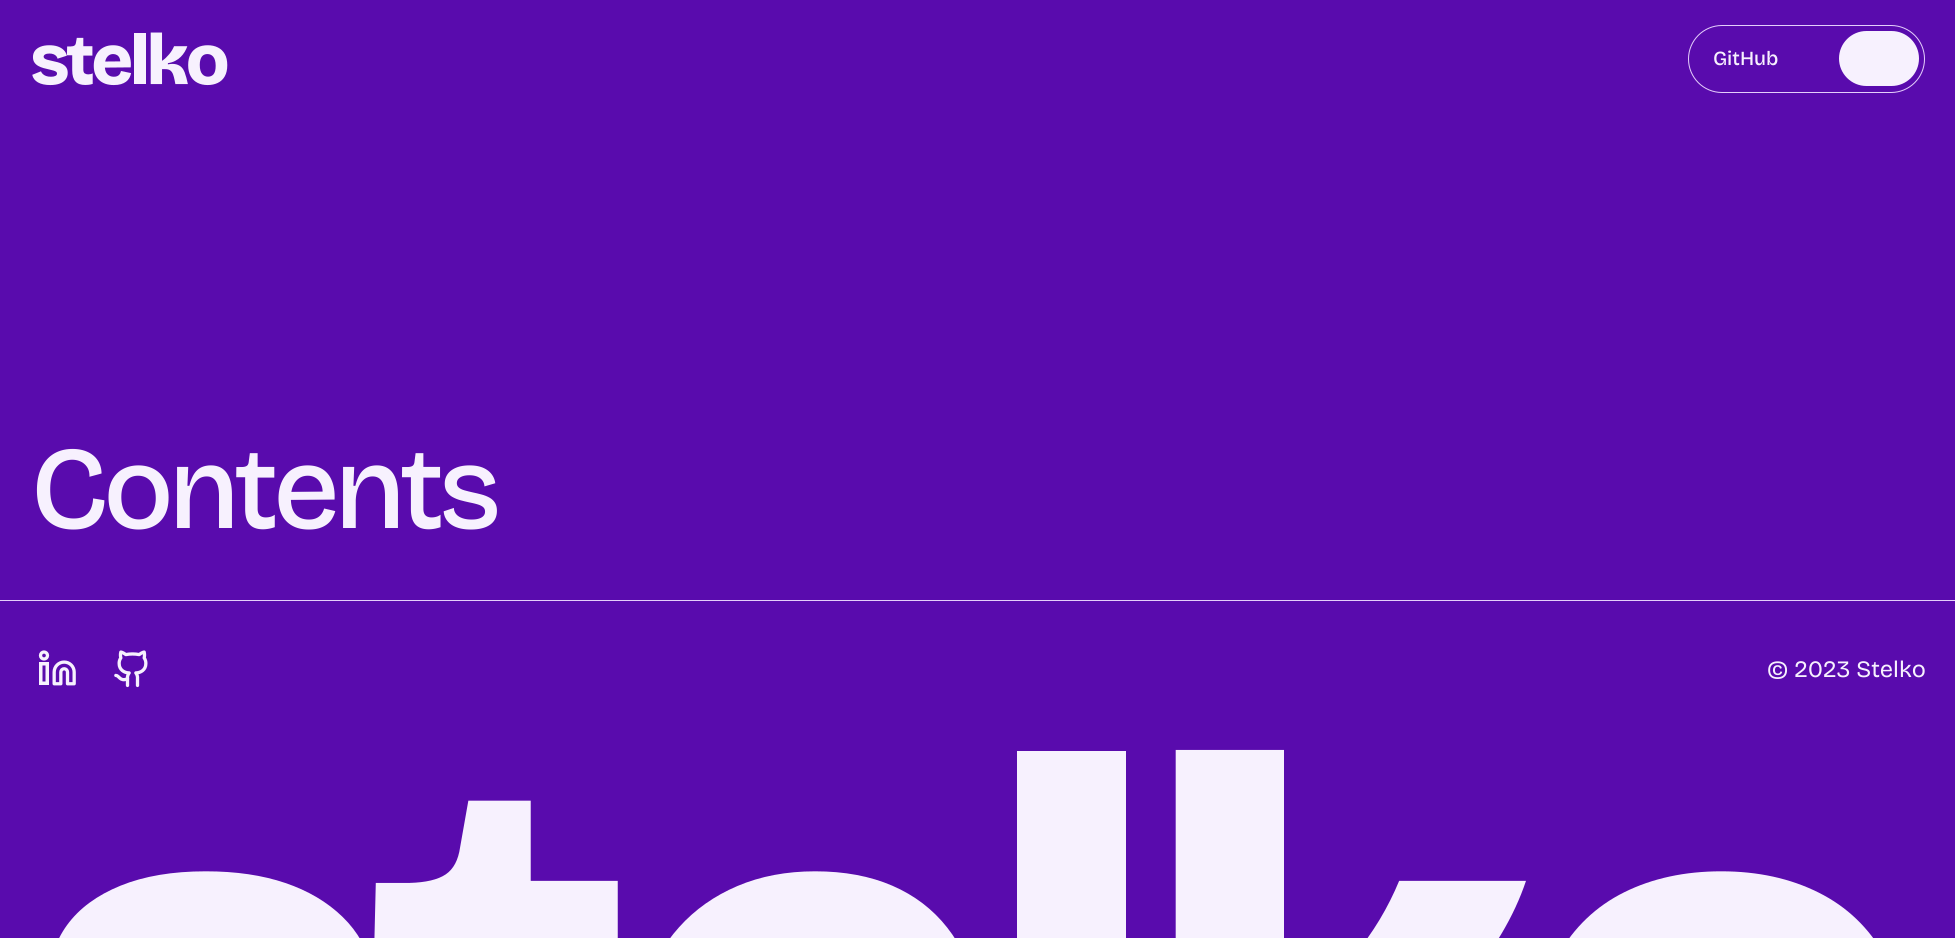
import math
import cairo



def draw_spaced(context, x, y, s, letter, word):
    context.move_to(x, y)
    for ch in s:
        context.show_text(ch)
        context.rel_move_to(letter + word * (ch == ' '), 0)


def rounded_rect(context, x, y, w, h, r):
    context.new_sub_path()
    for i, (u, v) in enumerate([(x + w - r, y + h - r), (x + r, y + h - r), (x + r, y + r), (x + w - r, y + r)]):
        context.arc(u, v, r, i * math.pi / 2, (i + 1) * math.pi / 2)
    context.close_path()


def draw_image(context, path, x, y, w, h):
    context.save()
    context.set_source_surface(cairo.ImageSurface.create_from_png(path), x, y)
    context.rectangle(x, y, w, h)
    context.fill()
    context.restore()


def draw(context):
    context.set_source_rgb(89 / 255, 11 / 255, 173 / 255)
    context.paint()
    draw_image(context, "images/1.png", 32, 32, 196, 54)
    rounded_rect(context, 1688.5, 25.5, 236, 67, 33.5)
    context.set_source_rgb(229 / 255, 207 / 255, 252 / 255)
    context.set_line_width(1)
    context.stroke()
    context.set_source_rgb(247 / 255, 241 / 255, 254 / 255)
    rounded_rect(context, 1839, 31, 80, 55, 27.5)
    context.fill()
    context.set_source_rgb(229 / 255, 207 / 255, 252 / 255)
    context.rectangle(0, 600, 1955, 1)
    context.fill()
    draw_image(context, "images/2.png", 38, 650, 38, 36)
    draw_image(context, "images/3.png", 114, 650, 34, 38)
    draw_image(context, "images/4.png", 59, 749, 1814, 189)
    context.select_font_face("Bricolage Grotesque Medium")
    context.set_font_size(20)
    context.set_source_rgb(247 / 255, 241 / 255, 254 / 255)
    context.move_to(1713, 65)
    context.show_text("GitHub")
    context.set_font_size(117.5)
    draw_spaced(context, 30, 528, "Contents", -5.75, 0)
    context.select_font_face("Bricolage Grotesque")
    context.set_font_size(23.5)
    context.move_to(1767, 677)
    context.show_text("© 2023 Stelko")


surface = cairo.ImageSurface(cairo.Format.RGB24, 1955, 938)
context = cairo.Context(surface)
options = cairo.FontOptions()
options.set_hint_metrics(cairo.HintMetrics.OFF)
options.set_hint_style(cairo.HintStyle.NONE)
context.set_font_options(options)
context.set_miter_limit(4)
draw(context)
surface.write_to_png("out.png")
